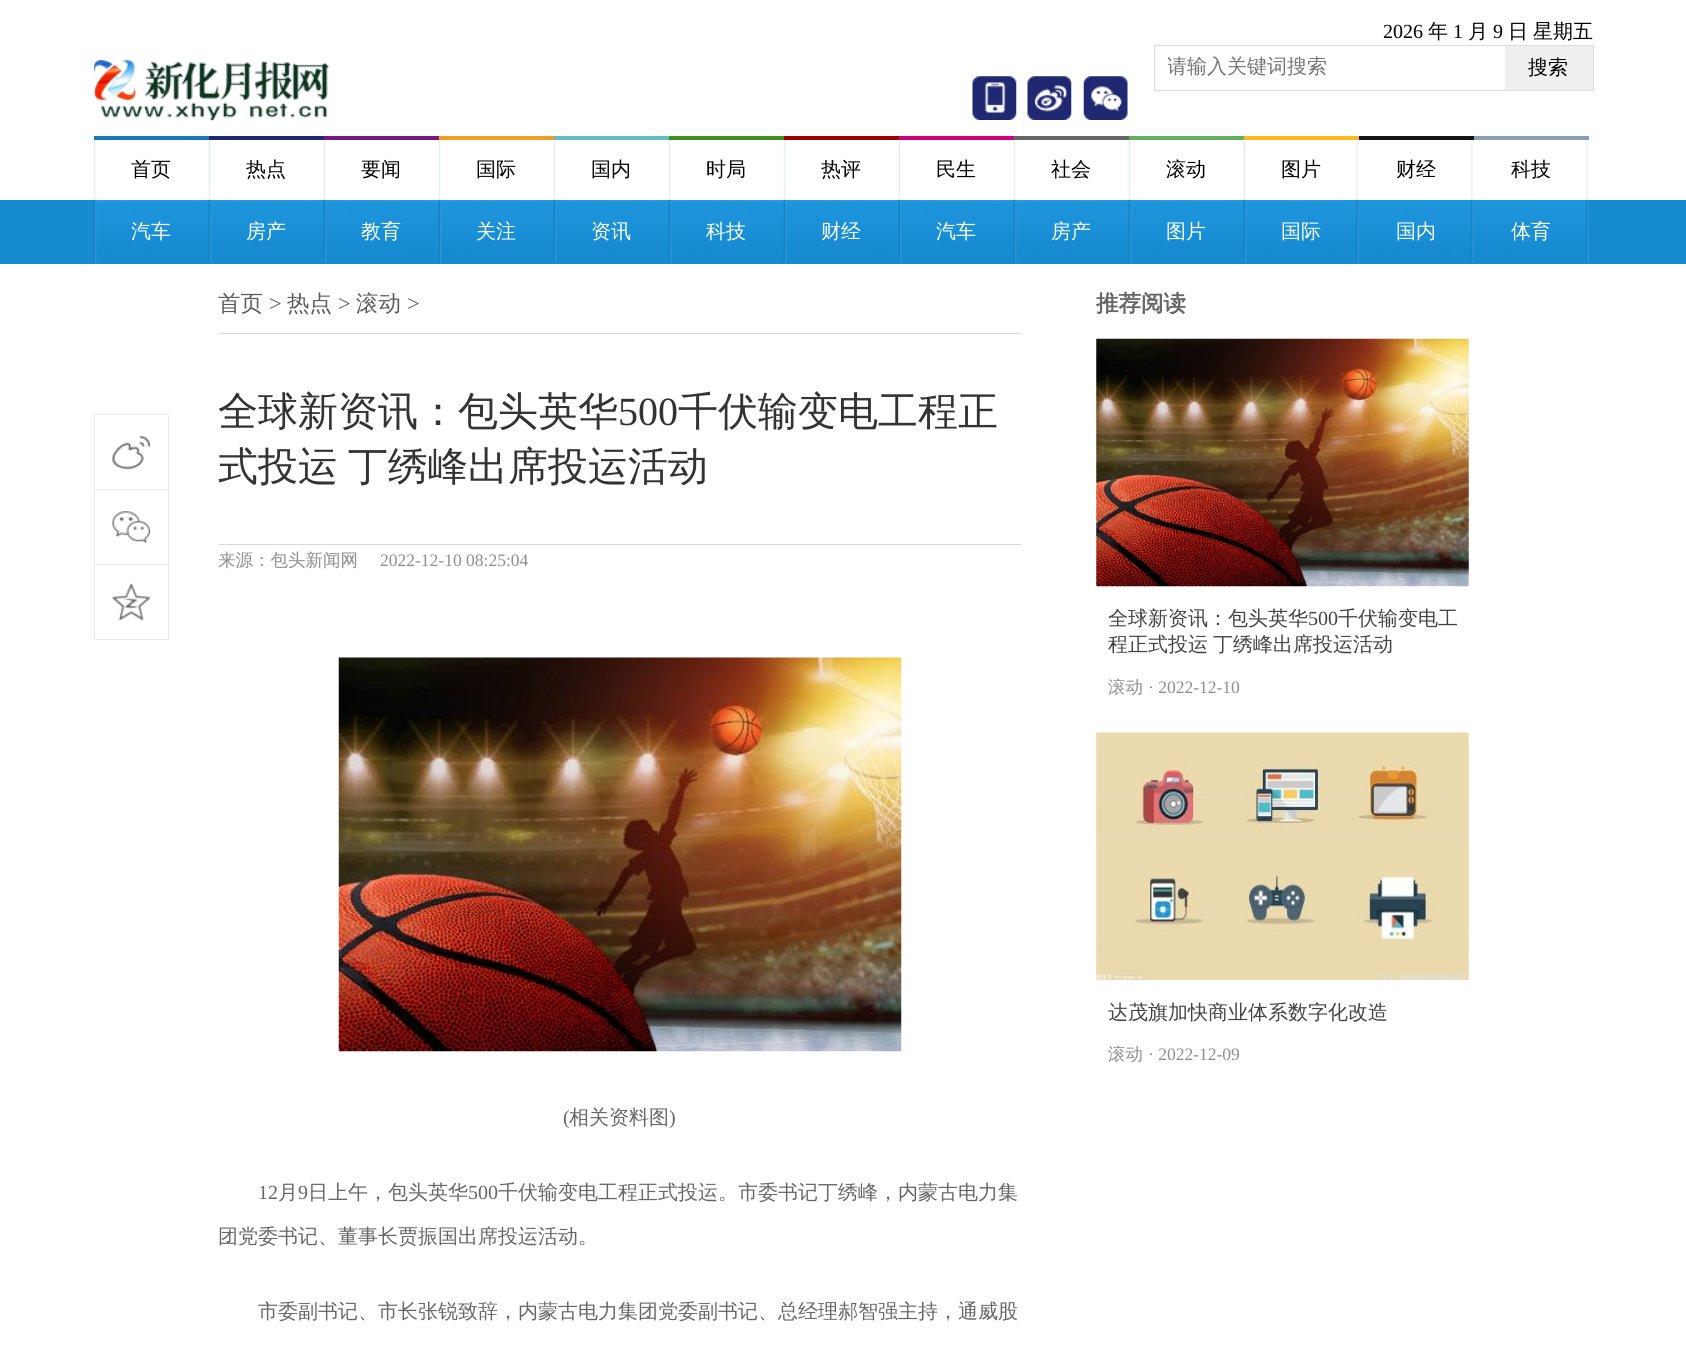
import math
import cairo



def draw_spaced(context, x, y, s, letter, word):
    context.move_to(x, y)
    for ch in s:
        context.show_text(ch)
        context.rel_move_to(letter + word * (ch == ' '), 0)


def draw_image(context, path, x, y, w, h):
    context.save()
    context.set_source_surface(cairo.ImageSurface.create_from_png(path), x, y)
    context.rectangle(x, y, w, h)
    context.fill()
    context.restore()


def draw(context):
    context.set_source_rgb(1, 1, 1)
    context.paint()
    draw_image(context, "images/1.png", 93, 59, 236, 62)
    draw_image(context, "images/2.png", 972, 76, 45, 44)
    draw_image(context, "images/3.png", 1027, 76, 45, 44)
    draw_image(context, "images/4.png", 1083, 76, 45, 44)
    context.rectangle(1154.5, 45.5, 439, 45)
    context.set_source_rgb(223 / 255, 220 / 255, 220 / 255)
    context.set_line_width(1)
    context.stroke()
    context.set_source_rgb(239 / 255, 239 / 255, 239 / 255)
    context.rectangle(1505, 46, 88, 44)
    context.fill()
    draw_image(context, "images/5.png", 94, 140, 1494, 60)
    context.set_source_rgb(26 / 255, 120 / 255, 192 / 255)
    context.rectangle(94, 136, 115, 4)
    context.fill()
    context.set_source_rgb(32 / 255, 40 / 255, 114 / 255)
    context.rectangle(209, 136, 115, 4)
    context.fill()
    context.set_source_rgb(115 / 255, 23 / 255, 130 / 255)
    context.rectangle(324, 136, 115, 4)
    context.fill()
    context.set_source_rgb(242 / 255, 159 / 255, 38 / 255)
    context.rectangle(439, 136, 115, 4)
    context.fill()
    context.set_source_rgb(97 / 255, 190 / 255, 198 / 255)
    context.rectangle(554, 136, 115, 4)
    context.fill()
    context.set_source_rgb(62 / 255, 144 / 255, 30 / 255)
    context.rectangle(669, 136, 115, 4)
    context.fill()
    context.set_source_rgb(153 / 255, 0, 0)
    context.rectangle(784, 136, 115, 4)
    context.fill()
    context.set_source_rgb(210 / 255, 0, 127 / 255)
    context.rectangle(899, 136, 115, 4)
    context.fill()
    context.set_source_rgb(102 / 255, 102 / 255, 102 / 255)
    context.rectangle(1014, 136, 115, 4)
    context.fill()
    context.set_source_rgb(99 / 255, 174 / 255, 96 / 255)
    context.rectangle(1129, 136, 115, 4)
    context.fill()
    context.set_source_rgb(254 / 255, 183 / 255, 29 / 255)
    context.rectangle(1244, 136, 115, 4)
    context.fill()
    context.set_source_rgb(19 / 255, 20 / 255, 20 / 255)
    context.rectangle(1359, 136, 115, 4)
    context.fill()
    context.set_source_rgb(138 / 255, 159 / 255, 178 / 255)
    context.rectangle(1474, 136, 115, 4)
    context.fill()
    context.set_source_rgb(21 / 255, 138 / 255, 209 / 255)
    context.rectangle(0, 200, 1686, 64)
    context.fill()
    draw_image(context, "images/6.png", 94, 200, 1495, 63)
    context.set_source_rgb(234 / 255, 234 / 255, 234 / 255)
    context.rectangle(94, 414, 75, 1)
    context.fill()
    context.rectangle(168, 414, 1, 226)
    context.fill()
    context.rectangle(94, 414, 1, 226)
    context.fill()
    draw_image(context, "images/7.png", 112, 436, 38, 33)
    context.rectangle(95, 489, 73, 1)
    context.fill()
    draw_image(context, "images/8.png", 112, 511, 38, 32)
    context.rectangle(95, 564, 73, 1)
    context.fill()
    draw_image(context, "images/9.png", 112, 583, 38, 38)
    context.rectangle(95, 639, 73, 1)
    context.fill()
    context.set_source_rgb(216 / 255, 216 / 255, 216 / 255)
    context.rectangle(219, 333, 802, 1)
    context.fill()
    context.rectangle(219, 544, 802, 1)
    context.fill()
    draw_image(context, "images/10.png", 338, 657, 564, 395)
    draw_image(context, "images/11.png", 1096, 338, 373, 249)
    draw_image(context, "images/12.png", 1096, 732, 373, 248)
    context.select_font_face("Liberation Serif")
    context.set_font_size(20)
    context.set_source_rgb(0, 0, 0)
    context.move_to(1383, 38)
    context.show_text("2026")
    context.select_font_face("WenQuanYi Zen Hei Medium")
    context.move_to(1428, 38)
    context.show_text("年")
    context.select_font_face("Liberation Serif")
    context.move_to(1453, 38)
    context.show_text("1")
    context.select_font_face("WenQuanYi Zen Hei Medium")
    context.move_to(1468, 38)
    context.show_text("月")
    context.select_font_face("Liberation Serif")
    context.move_to(1493, 38)
    context.show_text("9")
    context.select_font_face("WenQuanYi Zen Hei Medium")
    context.move_to(1508, 38)
    context.show_text("日")
    context.move_to(1533, 38)
    context.show_text("星期五")
    context.save()
    context.rectangle(1168, 54, 350, 24)
    context.clip()
    context.set_source_rgb(117 / 255, 117 / 255, 117 / 255)
    context.move_to(1167, 73)
    context.show_text("请输入关键词搜索")
    context.restore()
    context.move_to(1528, 74)
    context.show_text("搜索")
    context.move_to(131, 176)
    context.show_text("首页")
    context.move_to(246, 176)
    context.show_text("热点")
    context.move_to(361, 176)
    context.show_text("要闻")
    context.move_to(476, 176)
    context.show_text("国际")
    context.move_to(591, 176)
    context.show_text("国内")
    context.move_to(706, 176)
    context.show_text("时局")
    context.move_to(821, 176)
    context.show_text("热评")
    context.move_to(936, 176)
    context.show_text("民生")
    context.move_to(1051, 176)
    context.show_text("社会")
    context.move_to(1166, 176)
    context.show_text("滚动")
    context.move_to(1281, 176)
    context.show_text("图片")
    context.move_to(1396, 176)
    context.show_text("财经")
    context.move_to(1511, 176)
    context.show_text("科技")
    context.set_source_rgb(1, 1, 1)
    context.move_to(131, 238)
    context.show_text("汽车")
    context.move_to(246, 238)
    context.show_text("房产")
    context.move_to(361, 238)
    context.show_text("教育")
    context.move_to(476, 238)
    context.show_text("关注")
    context.move_to(591, 238)
    context.show_text("资讯")
    context.move_to(706, 238)
    context.show_text("科技")
    context.move_to(821, 238)
    context.show_text("财经")
    context.move_to(936, 238)
    context.show_text("汽车")
    context.move_to(1051, 238)
    context.show_text("房产")
    context.move_to(1166, 238)
    context.show_text("图片")
    context.move_to(1281, 238)
    context.show_text("国际")
    context.move_to(1396, 238)
    context.show_text("国内")
    context.move_to(1511, 238)
    context.show_text("体育")
    context.set_font_size(22.5)
    context.set_source_rgb(91 / 255, 91 / 255, 91 / 255)
    context.move_to(218, 311)
    context.show_text("首页")
    context.select_font_face("Liberation Serif")
    context.move_to(269, 311)
    context.show_text(">")
    context.select_font_face("WenQuanYi Zen Hei Medium")
    context.move_to(287, 311)
    context.show_text("热点")
    context.select_font_face("Liberation Serif")
    context.move_to(338, 311)
    context.show_text(">")
    context.select_font_face("WenQuanYi Zen Hei Medium")
    context.move_to(356, 311)
    context.show_text("滚动")
    context.select_font_face("Liberation Serif")
    context.move_to(407, 311)
    context.show_text(">")
    context.select_font_face("WenQuanYi Zen Hei Medium")
    context.set_font_size(40)
    context.set_source_rgb(51 / 255, 51 / 255, 51 / 255)
    context.move_to(218, 425)
    context.show_text("全球新资讯：包头英华")
    context.select_font_face("Liberation Serif")
    context.move_to(618, 425)
    context.show_text("500")
    context.select_font_face("WenQuanYi Zen Hei Medium")
    context.move_to(678, 425)
    context.show_text("千伏输变电工程正")
    draw_spaced(context, 218, 480, "式投运 丁绣峰出席投运活动", 0, -2)
    context.set_font_size(17.5)
    context.set_source_rgb(142 / 255, 142 / 255, 142 / 255)
    context.move_to(218, 566)
    context.show_text("来源：包头新闻网")
    context.select_font_face("Liberation Serif")
    context.move_to(380, 566)
    context.show_text("2022-12-10 08:25:04")
    context.set_font_size(20)
    context.set_source_rgb(102 / 255, 102 / 255, 102 / 255)
    context.move_to(563, 1124)
    context.show_text("(")
    context.select_font_face("WenQuanYi Zen Hei Medium")
    context.move_to(569, 1124)
    context.show_text("相关资料图")
    context.select_font_face("Liberation Serif")
    context.move_to(669, 1124)
    context.show_text(")")
    context.move_to(258, 1199)
    context.show_text("12")
    context.select_font_face("WenQuanYi Zen Hei Medium")
    context.move_to(278, 1199)
    context.show_text("月")
    context.select_font_face("Liberation Serif")
    context.move_to(298, 1199)
    context.show_text("9")
    context.select_font_face("WenQuanYi Zen Hei Medium")
    context.move_to(308, 1199)
    context.show_text("日上午，包头英华")
    context.select_font_face("Liberation Serif")
    context.move_to(468, 1199)
    context.show_text("500")
    context.select_font_face("WenQuanYi Zen Hei Medium")
    context.move_to(498, 1199)
    context.show_text("千伏输变电工程正式投运。市委书记丁绣峰，内蒙古电力集")
    context.move_to(218, 1243)
    context.show_text("团党委书记、董事长贾振国出席投运活动。")
    context.move_to(258, 1318)
    context.show_text("市委副书记、市长张锐致辞，内蒙古电力集团党委副书记、总经理郝智强主持，通威股")
    context.select_font_face("WenQuanYi Zen Hei", cairo.FontSlant.NORMAL, cairo.FontWeight.BOLD)
    context.set_font_size(22.5)
    context.move_to(1096, 311)
    context.show_text("推荐阅读")
    context.select_font_face("WenQuanYi Zen Hei Medium")
    context.set_font_size(20)
    context.set_source_rgb(67 / 255, 67 / 255, 67 / 255)
    context.move_to(1108, 625)
    context.show_text("全球新资讯：包头英华")
    context.select_font_face("Liberation Serif")
    context.move_to(1308, 625)
    context.show_text("500")
    context.select_font_face("WenQuanYi Zen Hei Medium")
    context.move_to(1338, 625)
    context.show_text("千伏输变电工")
    draw_spaced(context, 1108, 651, "程正式投运 丁绣峰出席投运活动", 0, -1)
    context.set_font_size(17.5)
    context.set_source_rgb(142 / 255, 142 / 255, 142 / 255)
    context.move_to(1108, 693)
    context.show_text("滚动")
    context.select_font_face("Liberation Serif")
    context.move_to(1148, 693)
    context.show_text("· 2022-12-10")
    context.select_font_face("WenQuanYi Zen Hei Medium")
    context.set_font_size(20)
    context.set_source_rgb(67 / 255, 67 / 255, 67 / 255)
    context.move_to(1108, 1019)
    context.show_text("达茂旗加快商业体系数字化改造")
    context.set_font_size(17.5)
    context.set_source_rgb(142 / 255, 142 / 255, 142 / 255)
    context.move_to(1108, 1060)
    context.show_text("滚动")
    context.select_font_face("Liberation Serif")
    context.move_to(1148, 1060)
    context.show_text("· 2022-12-09")


surface = cairo.ImageSurface(cairo.Format.RGB24, 1686, 1345)
context = cairo.Context(surface)
options = cairo.FontOptions()
options.set_hint_metrics(cairo.HintMetrics.OFF)
options.set_hint_style(cairo.HintStyle.NONE)
context.set_font_options(options)
context.set_miter_limit(4)
draw(context)
surface.write_to_png("out.png")
